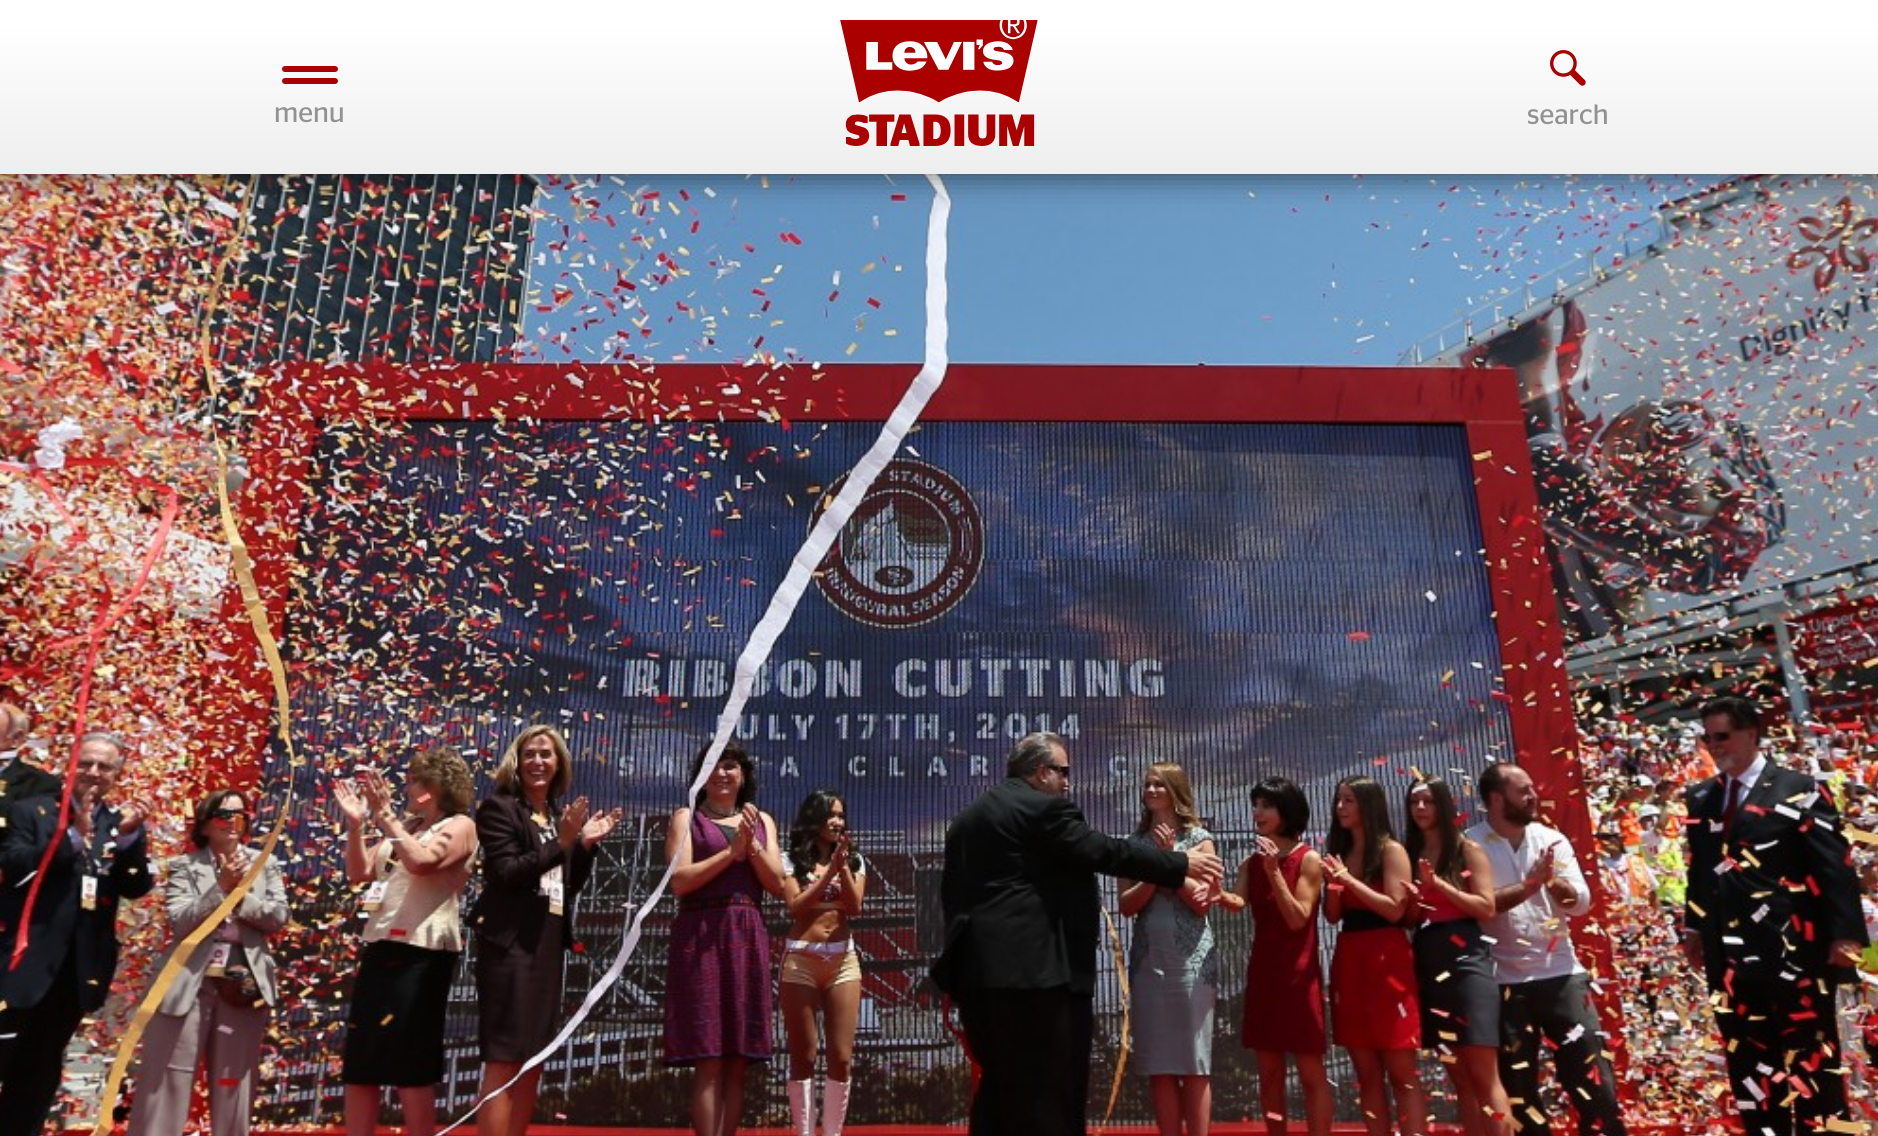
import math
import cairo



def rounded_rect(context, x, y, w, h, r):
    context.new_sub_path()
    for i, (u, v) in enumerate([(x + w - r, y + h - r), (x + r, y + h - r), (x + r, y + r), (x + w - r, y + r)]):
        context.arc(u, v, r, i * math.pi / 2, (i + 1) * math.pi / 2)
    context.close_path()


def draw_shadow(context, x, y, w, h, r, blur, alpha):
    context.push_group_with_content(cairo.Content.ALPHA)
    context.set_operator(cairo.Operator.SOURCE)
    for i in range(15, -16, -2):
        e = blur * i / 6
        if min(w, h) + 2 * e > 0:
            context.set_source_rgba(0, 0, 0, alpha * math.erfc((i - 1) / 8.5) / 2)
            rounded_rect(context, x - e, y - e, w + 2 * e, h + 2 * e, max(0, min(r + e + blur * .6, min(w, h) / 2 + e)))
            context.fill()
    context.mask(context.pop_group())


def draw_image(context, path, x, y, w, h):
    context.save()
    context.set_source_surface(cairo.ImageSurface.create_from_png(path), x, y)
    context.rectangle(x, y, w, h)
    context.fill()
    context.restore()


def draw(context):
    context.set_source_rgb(1, 1, 1)
    context.paint()
    draw_image(context, "images/3.png", 0, 174, 1878, 962)
    context.set_source_rgb(0, 0, 0)
    draw_shadow(context, 0, 4, 1878, 174, 0, 14, 0.5)
    gradient = cairo.LinearGradient(939, 0, 939, 174)
    gradient.add_color_stop_rgba(0.14, 1, 1, 1, 1)
    gradient.add_color_stop_rgba(0.99, 238 / 255, 238 / 255, 238 / 255, 1)
    context.set_source(gradient)
    context.rectangle(0, 0, 1878, 174)
    context.fill()
    context.set_source_rgb(170 / 255, 0, 0)
    rounded_rect(context, 282, 66, 56, 6, 3)
    context.fill()
    rounded_rect(context, 282, 78, 56, 6, 3)
    context.fill()
    draw_image(context, "images/1.png", 840, 20, 198, 126)
    draw_image(context, "images/2.png", 1550, 50, 36, 36)
    context.select_font_face("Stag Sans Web")
    context.set_font_size(28)
    context.set_source_rgb(146 / 255, 146 / 255, 146 / 255)
    context.move_to(274, 122)
    context.show_text("menu")
    context.move_to(1527, 124)
    context.show_text("search")


surface = cairo.ImageSurface(cairo.Format.RGB24, 1878, 1136)
context = cairo.Context(surface)
options = cairo.FontOptions()
options.set_hint_metrics(cairo.HintMetrics.OFF)
options.set_hint_style(cairo.HintStyle.NONE)
context.set_font_options(options)
context.set_miter_limit(4)
draw(context)
surface.write_to_png("out.png")
